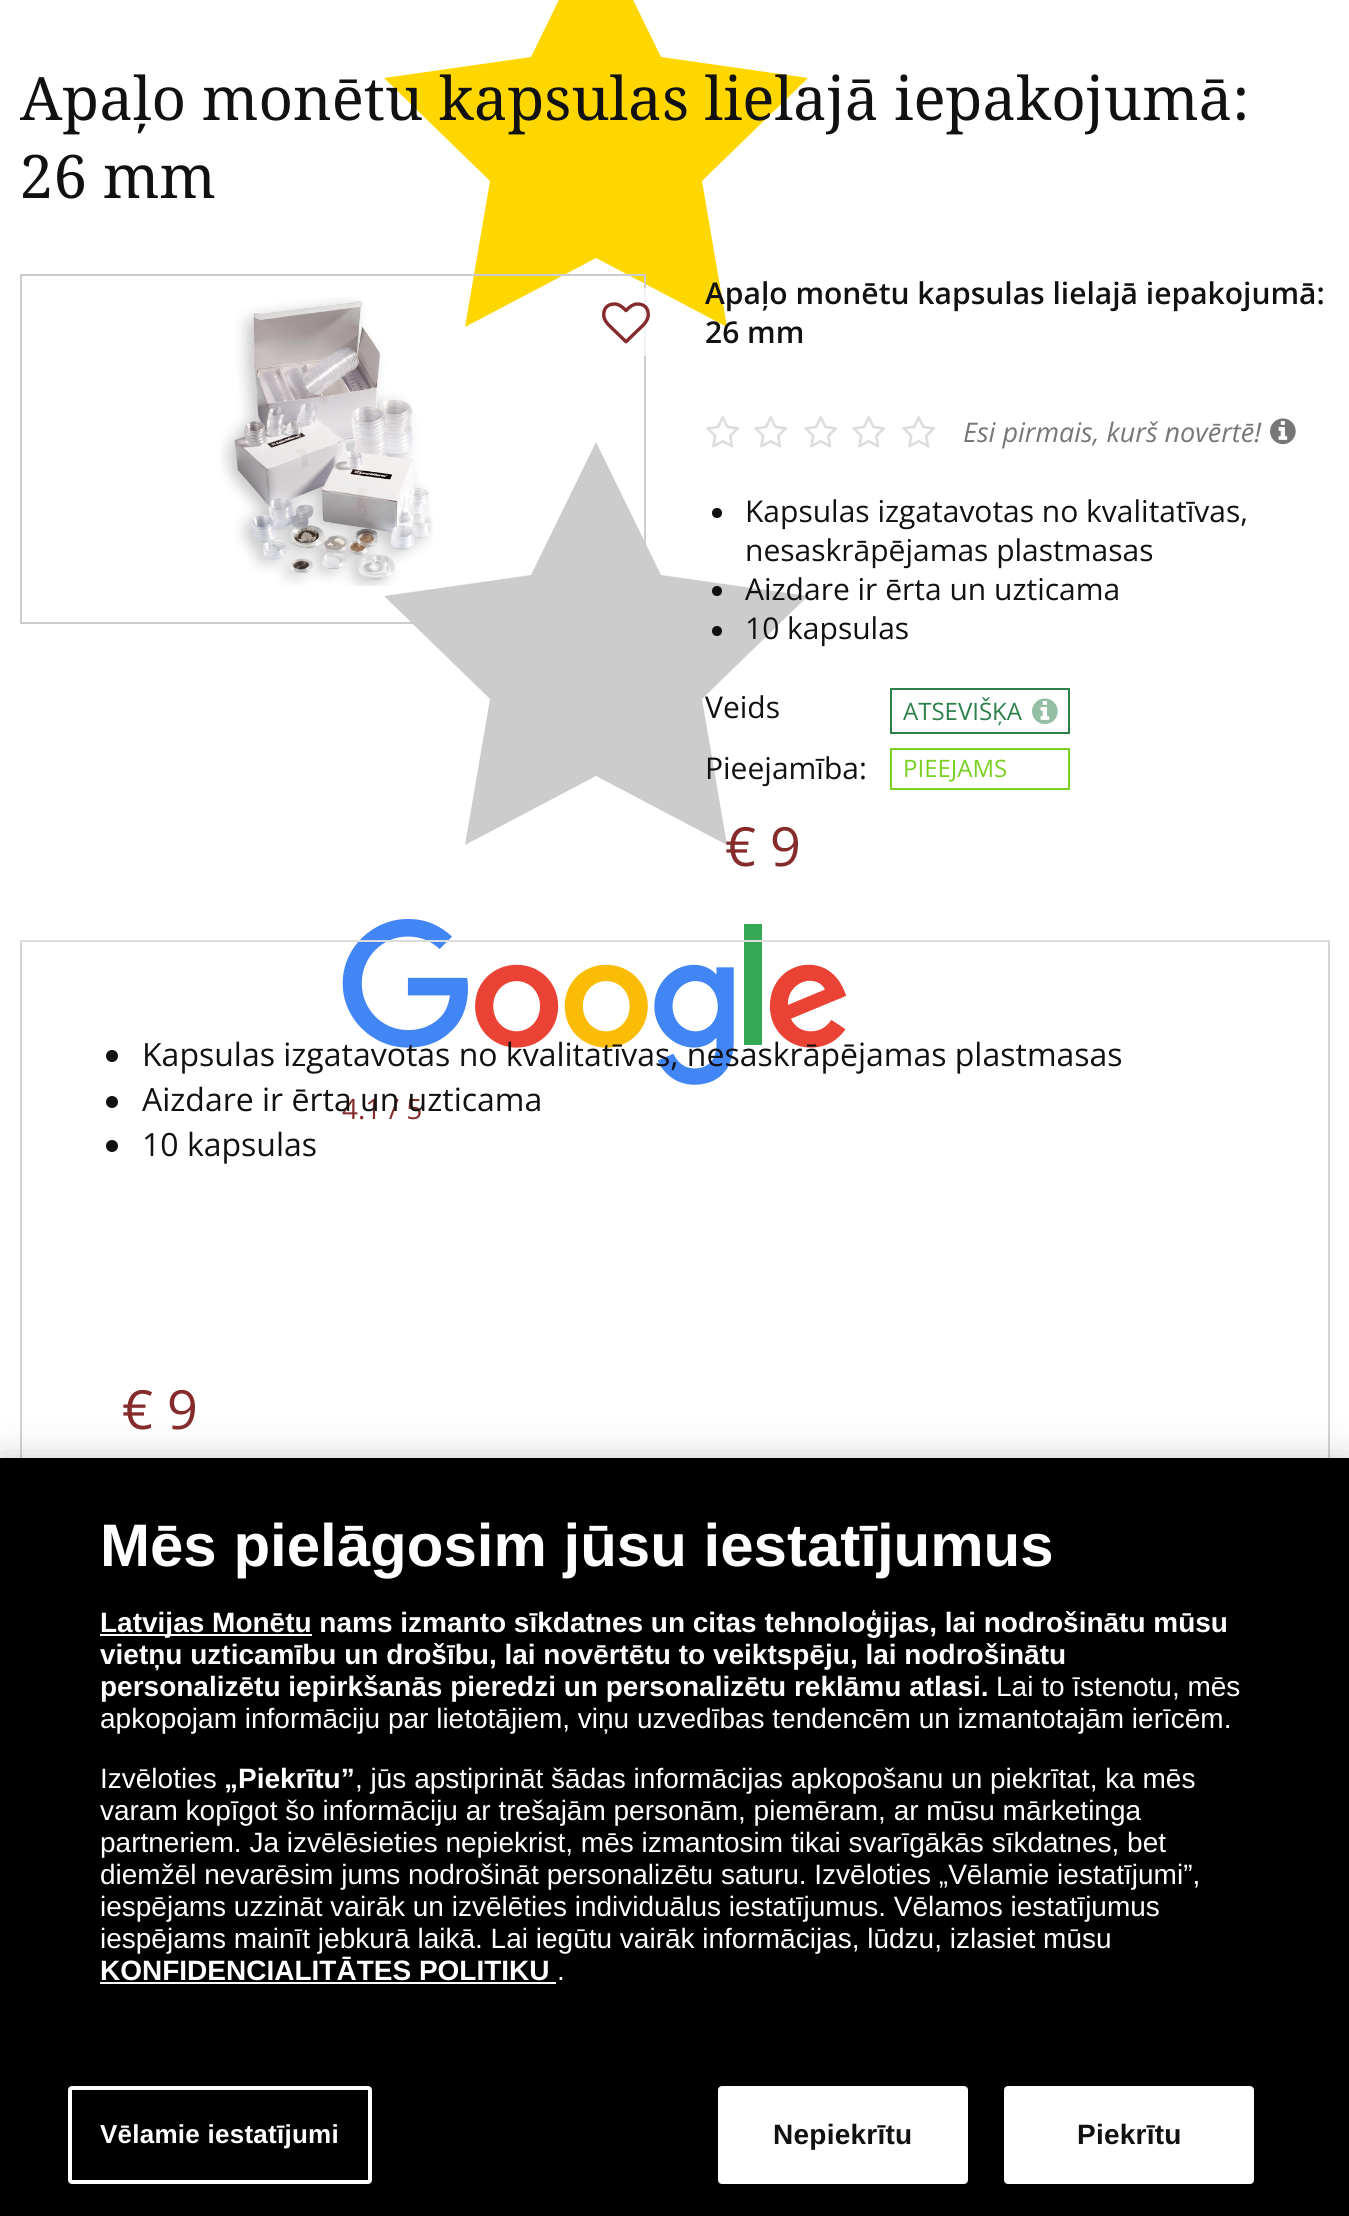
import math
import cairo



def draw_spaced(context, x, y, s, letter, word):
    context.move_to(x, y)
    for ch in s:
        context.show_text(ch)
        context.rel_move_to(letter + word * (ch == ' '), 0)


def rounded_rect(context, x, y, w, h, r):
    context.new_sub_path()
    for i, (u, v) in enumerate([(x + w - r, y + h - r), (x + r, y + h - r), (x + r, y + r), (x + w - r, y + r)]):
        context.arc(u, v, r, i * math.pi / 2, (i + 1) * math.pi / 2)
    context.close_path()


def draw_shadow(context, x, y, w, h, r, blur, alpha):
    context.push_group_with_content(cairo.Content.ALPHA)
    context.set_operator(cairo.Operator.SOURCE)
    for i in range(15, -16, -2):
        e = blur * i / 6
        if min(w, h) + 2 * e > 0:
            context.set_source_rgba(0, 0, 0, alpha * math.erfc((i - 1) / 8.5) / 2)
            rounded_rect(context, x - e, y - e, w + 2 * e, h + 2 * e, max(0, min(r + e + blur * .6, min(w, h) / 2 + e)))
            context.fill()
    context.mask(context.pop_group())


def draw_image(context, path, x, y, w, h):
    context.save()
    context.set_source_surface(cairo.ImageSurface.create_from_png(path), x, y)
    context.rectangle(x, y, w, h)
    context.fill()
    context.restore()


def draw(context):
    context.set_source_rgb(1, 1, 1)
    context.paint()
    context.set_source_rgb(1, 215 / 255, 0)
    context.new_path()
    context.move_to(596, -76)
    context.line_to(661, 57)
    context.line_to(808, 78)
    context.line_to(702, 181)
    context.line_to(727, 327)
    context.line_to(596, 258)
    context.line_to(465, 327)
    context.line_to(490, 181)
    context.line_to(384, 78)
    context.line_to(531, 57)
    context.close_path()
    context.fill()
    context.set_source_rgb(204 / 255, 204 / 255, 204 / 255)
    context.new_path()
    context.move_to(596, 442)
    context.line_to(661, 575)
    context.line_to(808, 596)
    context.line_to(702, 699)
    context.line_to(727, 845)
    context.line_to(596, 776)
    context.line_to(465, 845)
    context.line_to(490, 699)
    context.line_to(384, 596)
    context.line_to(531, 575)
    context.close_path()
    context.fill()
    context.rectangle(21, 275, 624, 348)
    context.stroke()
    draw_image(context, "images/1.png", 220, 297, 213, 289)
    context.set_source_rgba(1, 1, 1, 0.75)
    rounded_rect(context, 592, 288, 70, 68, 14)
    context.fill()
    draw_image(context, "images/2.png", 602, 302, 48, 42)
    draw_image(context, "images/3.png", 706, 416, 34, 32)
    draw_image(context, "images/3.png", 754, 416, 34, 32)
    draw_image(context, "images/3.png", 804, 416, 34, 32)
    draw_image(context, "images/3.png", 852, 416, 34, 32)
    draw_image(context, "images/3.png", 902, 416, 34, 32)
    draw_image(context, "images/4.png", 1270, 418, 26, 27)
    context.set_source_rgb(17 / 255, 17 / 255, 17 / 255)
    context.arc(717, 513, 5, 0, 2 * math.pi)
    context.fill()
    context.arc(717, 591, 5, 0, 2 * math.pi)
    context.fill()
    context.arc(717, 631, 5, 0, 2 * math.pi)
    context.fill()
    context.rectangle(891, 689, 178, 44)
    context.set_source_rgb(43 / 255, 128 / 255, 76 / 255)
    context.stroke()
    draw_image(context, "images/5.png", 1032, 698, 26, 27)
    context.rectangle(891, 749, 178, 40)
    context.set_source_rgb(122 / 255, 209 / 255, 36 / 255)
    context.stroke()
    draw_image(context, "images/6.png", 342, 919, 505, 166)
    context.set_source_rgb(221 / 255, 221 / 255, 221 / 255)
    context.rectangle(20, 940, 1310, 2)
    context.fill()
    context.set_source_rgb(211 / 255, 211 / 255, 211 / 255)
    context.rectangle(1328, 942, 2, 516)
    context.fill()
    context.rectangle(20, 942, 2, 516)
    context.fill()
    context.set_source_rgb(17 / 255, 17 / 255, 17 / 255)
    context.arc(112, 1056, 6, 0, 2 * math.pi)
    context.fill()
    context.arc(112, 1102, 6, 0, 2 * math.pi)
    context.fill()
    context.arc(112, 1146, 6, 0, 2 * math.pi)
    context.fill()
    context.set_source_rgb(0, 0, 0)
    draw_shadow(context, 0, 1458, 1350, 758, 0, 18, 0.2)
    context.set_source_rgb(0, 0, 0)
    context.rectangle(0, 1458, 1349, 758)
    context.fill()
    context.set_source_rgb(1, 1, 1)
    context.rectangle(100, 1634, 212, 2)
    context.fill()
    context.rectangle(100, 1982, 456, 2)
    context.fill()
    rounded_rect(context, 70, 2088, 300, 94, 2)
    context.set_line_width(4)
    context.stroke()
    rounded_rect(context, 719, 2087, 248, 96, 3)
    context.fill_preserve()
    context.set_line_width(2)
    context.stroke()
    rounded_rect(context, 1005, 2087, 248, 96, 3)
    context.fill_preserve()
    context.stroke()
    context.select_font_face("Noto Serif")
    context.set_font_size(60)
    context.set_source_rgb(17 / 255, 17 / 255, 17 / 255)
    context.move_to(20, 120)
    context.show_text("Apaļo monētu kapsulas lielajā iepakojumā:")
    context.move_to(20, 198)
    context.show_text("26 mm")
    context.select_font_face("Open Sans SemiBold")
    context.set_font_size(30)
    context.move_to(705, 304)
    context.show_text("Apaļo monētu kapsulas lielajā iepakojumā:")
    context.move_to(705, 343)
    context.show_text("26 mm")
    context.select_font_face("Open Sans", cairo.FontSlant.ITALIC)
    context.set_font_size(27)
    context.set_source_rgb(119 / 255, 119 / 255, 119 / 255)
    context.move_to(963, 442)
    context.show_text("Esi pirmais, kurš novērtē!")
    context.select_font_face("Open Sans")
    context.set_font_size(30)
    context.set_source_rgb(17 / 255, 17 / 255, 17 / 255)
    context.move_to(745, 522)
    context.show_text("Kapsulas izgatavotas no kvalitatīvas,")
    context.move_to(745, 561)
    context.show_text("nesaskrāpējamas plastmasas")
    context.move_to(745, 600)
    context.show_text("Aizdare ir ērta un uzticama")
    context.move_to(745, 639)
    context.show_text("10 kapsulas")
    context.move_to(705, 718)
    context.show_text("Veids")
    context.move_to(705, 779)
    context.show_text("Pieejamība:")
    context.set_font_size(24)
    context.set_source_rgb(43 / 255, 128 / 255, 76 / 255)
    context.move_to(903, 720)
    context.show_text("ATSEVIŠĶA")
    context.set_source_rgb(122 / 255, 209 / 255, 36 / 255)
    context.move_to(903, 777)
    context.show_text("PIEEJAMS")
    context.set_font_size(54)
    context.set_source_rgb(133 / 255, 43 / 255, 43 / 255)
    context.move_to(725, 866)
    context.show_text("€ 9")
    context.set_font_size(32)
    context.set_source_rgb(17 / 255, 17 / 255, 17 / 255)
    context.move_to(142, 1066)
    context.show_text("Kapsulas izgatavotas no kvalitatīvas, nesaskrāpējamas plastmasas")
    context.move_to(142, 1156)
    context.show_text("10 kapsulas")
    context.set_font_size(54)
    context.set_source_rgb(133 / 255, 43 / 255, 43 / 255)
    context.move_to(122, 1429)
    context.show_text("€ 9")
    context.set_font_size(28)
    context.move_to(342, 1119)
    context.show_text("4.1 / 5")
    context.set_font_size(32)
    context.set_source_rgb(17 / 255, 17 / 255, 17 / 255)
    context.move_to(142, 1111)
    context.show_text("Aizdare ir ērta un uzticama")
    context.select_font_face("Liberation Sans", cairo.FontSlant.NORMAL, cairo.FontWeight.BOLD)
    context.set_font_size(60)
    context.set_source_rgb(1, 1, 1)
    context.move_to(100, 1566)
    context.show_text("Mēs pielāgosim jūsu iestatījumus")
    context.set_font_size(28)
    context.move_to(100, 1632)
    context.show_text("Latvijas Monētu nams izmanto sīkdatnes un citas tehnoloģijas, lai nodrošinātu mūsu")
    context.move_to(100, 1664)
    context.show_text("vietņu uzticamību un drošību, lai novērtētu to veiktspēju, lai nodrošinātu")
    context.move_to(100, 1696)
    context.show_text("personalizētu iepirkšanās pieredzi un personalizētu reklāmu atlasi.")
    context.select_font_face("Liberation Sans")
    context.move_to(996, 1696)
    context.show_text("Lai to īstenotu, mēs")
    context.move_to(100, 1728)
    context.show_text("apkopojam informāciju par lietotājiem, viņu uzvedības tendencēm un izmantotajām ierīcēm.")
    context.move_to(100, 1788)
    context.show_text("Izvēloties")
    context.select_font_face("Liberation Sans", cairo.FontSlant.NORMAL, cairo.FontWeight.BOLD)
    context.move_to(224, 1788)
    context.show_text("„Piekrītu”")
    context.select_font_face("Liberation Sans")
    context.move_to(355, 1788)
    context.show_text(", jūs apstiprināt šādas informācijas apkopošanu un piekrītat, ka mēs")
    context.move_to(100, 1820)
    context.show_text("varam kopīgot šo informāciju ar trešajām personām, piemēram, ar mūsu mārketinga")
    context.move_to(100, 1852)
    context.show_text("partneriem. Ja izvēlēsieties nepiekrist, mēs izmantosim tikai svarīgākās sīkdatnes, bet")
    context.move_to(100, 1884)
    context.show_text("diemžēl nevarēsim jums nodrošināt personalizētu saturu. Izvēloties „Vēlamie iestatījumi”,")
    context.move_to(100, 1916)
    context.show_text("iespējams uzzināt vairāk un izvēlēties individuālus iestatījumus. Vēlamos iestatījumus")
    context.move_to(100, 1948)
    context.show_text("iespējams mainīt jebkurā laikā. Lai iegūtu vairāk informācijas, lūdzu, izlasiet mūsu")
    context.select_font_face("Liberation Sans", cairo.FontSlant.NORMAL, cairo.FontWeight.BOLD)
    context.move_to(100, 1980)
    context.show_text("KONFIDENCIALITĀTES POLITIKU")
    context.select_font_face("Liberation Sans")
    context.move_to(557, 1980)
    context.show_text(".")
    context.select_font_face("Liberation Sans", cairo.FontSlant.NORMAL, cairo.FontWeight.BOLD)
    context.set_font_size(26)
    draw_spaced(context, 100, 2143, "Vēlamie iestatījumi", 0.25, 0)
    context.set_font_size(28)
    context.set_source_rgb(17 / 255, 17 / 255, 17 / 255)
    draw_spaced(context, 773, 2144, "Nepiekrītu", 0.25, 0)
    draw_spaced(context, 1077, 2144, "Piekrītu", 0.25, 0)


surface = cairo.ImageSurface(cairo.Format.RGB24, 1349, 2216)
context = cairo.Context(surface)
options = cairo.FontOptions()
options.set_hint_metrics(cairo.HintMetrics.OFF)
options.set_hint_style(cairo.HintStyle.NONE)
context.set_font_options(options)
context.set_miter_limit(4)
draw(context)
surface.write_to_png("out.png")
